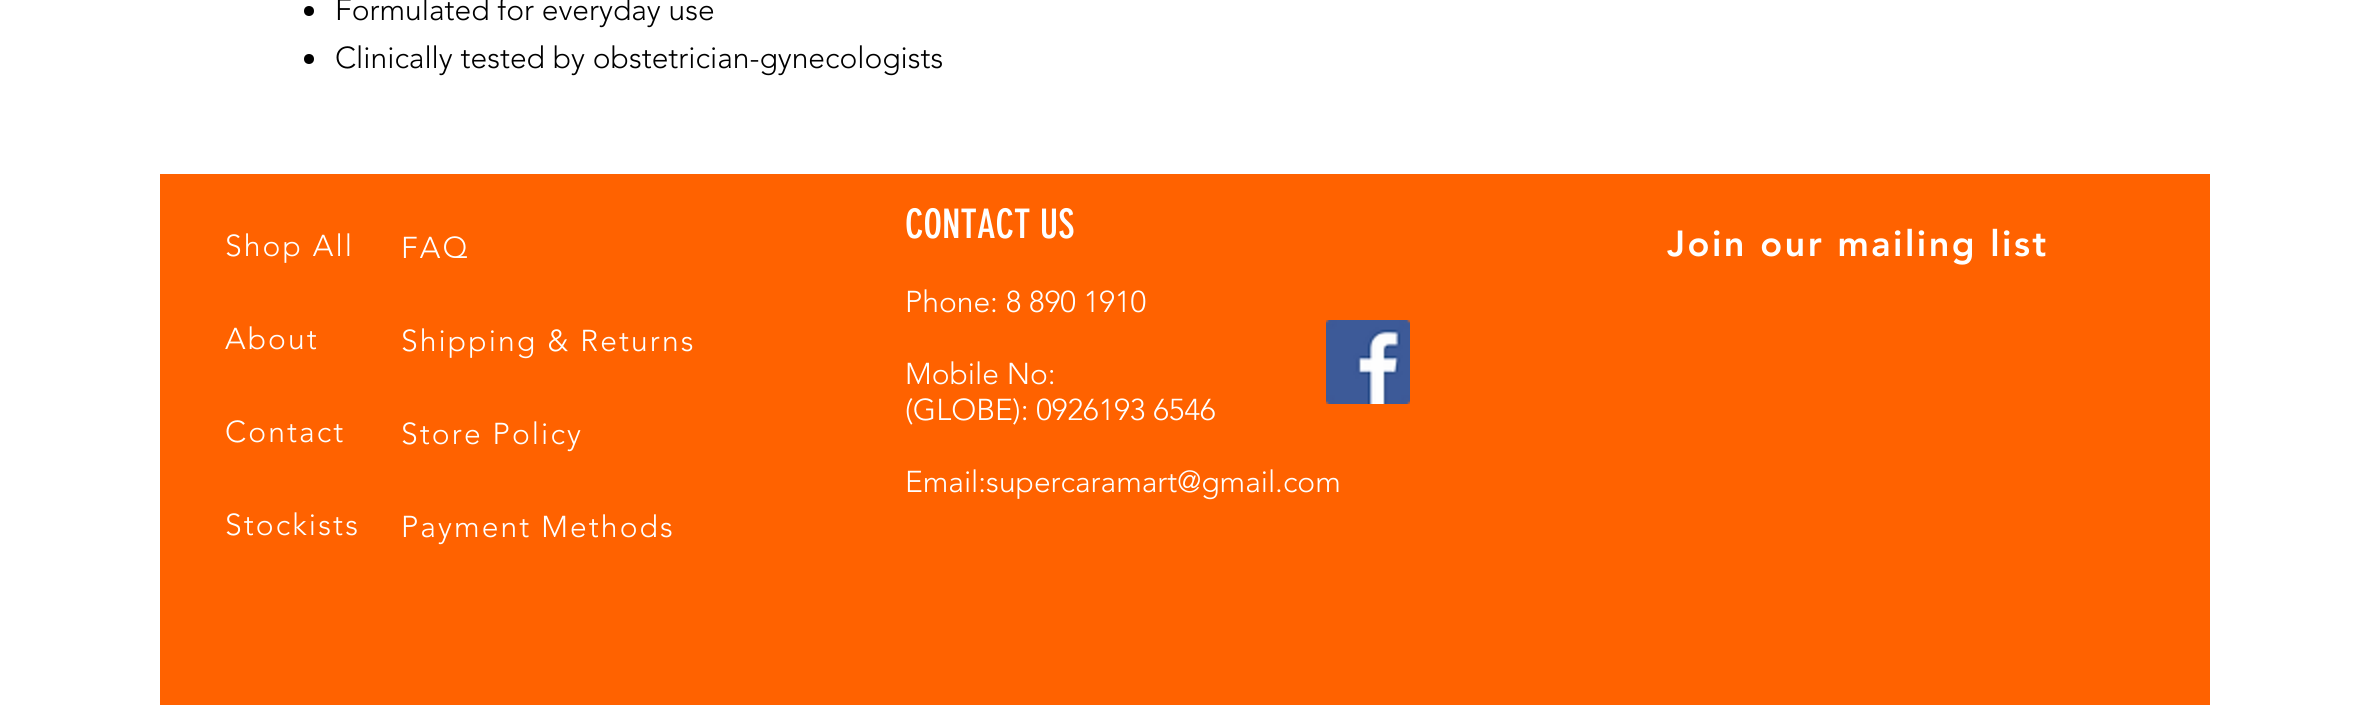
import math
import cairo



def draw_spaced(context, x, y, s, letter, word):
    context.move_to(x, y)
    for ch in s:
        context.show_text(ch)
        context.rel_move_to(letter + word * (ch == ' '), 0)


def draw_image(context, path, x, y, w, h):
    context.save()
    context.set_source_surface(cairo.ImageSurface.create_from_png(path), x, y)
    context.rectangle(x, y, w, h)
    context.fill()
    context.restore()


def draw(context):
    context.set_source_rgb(1, 1, 1)
    context.paint()
    context.set_source_rgb(0, 0, 0)
    context.arc(309, 11, 5, 0, 2 * math.pi)
    context.fill()
    context.arc(309, 59, 5, 0, 2 * math.pi)
    context.fill()
    context.set_source_rgb(1, 98 / 255, 0)
    context.rectangle(160, 174, 2050, 531)
    context.fill()
    draw_image(context, "images/1.png", 1326, 320, 84, 84)
    context.select_font_face("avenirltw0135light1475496 Light")
    context.set_font_size(30)
    context.set_source_rgb(0, 0, 0)
    context.move_to(335, 20)
    context.show_text("Formulated for everyday use")
    context.move_to(335, 68)
    context.show_text("Clinically tested by obstetrician-gynecologists")
    context.set_source_rgb(1, 1, 1)
    draw_spaced(context, 225, 256, "Shop All", 2.1, 0)
    draw_spaced(context, 225, 349, "About", 2.1, 0)
    draw_spaced(context, 225, 442, "Contact", 2.1, 0)
    draw_spaced(context, 225, 535, "Stockists", 2.1, 0)
    draw_spaced(context, 401, 258, "FAQ", 2.1, 0)
    draw_spaced(context, 401, 351, "Shipping & Returns", 2.1, 0)
    draw_spaced(context, 401, 444, "Store Policy", 2.1, 0)
    draw_spaced(context, 401, 537, "Payment Methods", 2.1, 0)
    context.select_font_face("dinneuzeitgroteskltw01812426")
    context.set_font_size(40)
    context.move_to(905, 238)
    context.show_text("CONTACT US")
    context.select_font_face("avenirltw0135light1475496 Light")
    context.set_font_size(30)
    context.move_to(905, 312)
    context.show_text("Phone: 8 890 1910")
    context.move_to(905, 384)
    context.show_text("Mobile No:")
    context.move_to(905, 420)
    context.show_text("(GLOBE): 0926193 6546")
    context.move_to(905, 492)
    context.show_text("Email:supercaramart@gmail.com")
    context.select_font_face("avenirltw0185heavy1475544 Black")
    context.set_font_size(36)
    draw_spaced(context, 1667, 256, "Join our mailing list", 2.5, 0)


surface = cairo.ImageSurface(cairo.Format.RGB24, 2369, 705)
context = cairo.Context(surface)
options = cairo.FontOptions()
options.set_hint_metrics(cairo.HintMetrics.OFF)
options.set_hint_style(cairo.HintStyle.NONE)
context.set_font_options(options)
context.set_miter_limit(4)
draw(context)
surface.write_to_png("out.png")
